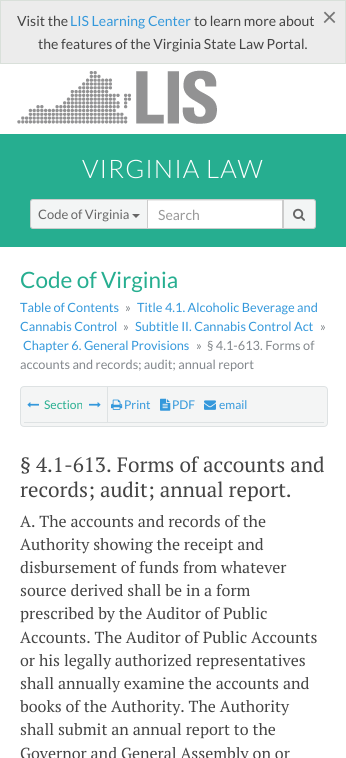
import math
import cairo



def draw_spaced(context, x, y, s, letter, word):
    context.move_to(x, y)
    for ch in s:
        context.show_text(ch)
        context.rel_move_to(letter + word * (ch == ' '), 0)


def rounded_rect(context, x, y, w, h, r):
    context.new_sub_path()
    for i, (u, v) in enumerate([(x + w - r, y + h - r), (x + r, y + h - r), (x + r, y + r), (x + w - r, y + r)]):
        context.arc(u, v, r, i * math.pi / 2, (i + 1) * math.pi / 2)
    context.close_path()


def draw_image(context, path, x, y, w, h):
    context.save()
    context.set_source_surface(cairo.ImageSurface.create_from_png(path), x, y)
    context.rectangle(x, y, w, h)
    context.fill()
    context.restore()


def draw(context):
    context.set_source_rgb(1, 1, 1)
    context.paint()
    context.set_source_rgb(236 / 255, 236 / 255, 236 / 255)
    context.rectangle(0.5, 0.5, 345, 63)
    context.fill_preserve()
    context.set_source_rgb(217 / 255, 224 / 255, 218 / 255)
    context.set_line_width(1)
    context.stroke()
    draw_image(context, "images/1.png", 17, 70, 200, 54)
    context.set_source_rgb(38 / 255, 174 / 255, 144 / 255)
    context.rectangle(0, 134, 346, 113)
    context.fill()
    context.set_source_rgb(1, 1, 1)
    context.rectangle(148, 201, 134, 27)
    context.fill()
    context.set_source_rgb(236 / 255, 236 / 255, 236 / 255)
    context.rectangle(148, 200, 134, 1)
    context.fill()
    context.rectangle(147.5, 199.5, 135, 29)
    context.set_source_rgb(204 / 255, 204 / 255, 204 / 255)
    context.stroke()
    context.set_source_rgb(243 / 255, 245 / 255, 245 / 255)
    context.new_path()
    context.move_to(33, 199.5)
    context.line_to(147.5, 199.5)
    context.line_to(147.5, 228.5)
    context.line_to(33, 228.5)
    context.curve_to(31.5, 228.5, 30.5, 227.5, 30.5, 226)
    context.line_to(30.5, 202)
    context.curve_to(30.5, 200.5, 31.5, 199.5, 33, 199.5)
    context.close_path()
    context.fill_preserve()
    context.set_source_rgb(204 / 255, 204 / 255, 204 / 255)
    context.stroke()
    context.set_source_rgb(102 / 255, 102 / 255, 102 / 255)
    context.new_path()
    context.move_to(132, 214)
    context.line_to(140, 214)
    context.line_to(136, 218)
    context.close_path()
    context.fill()
    context.set_source_rgb(243 / 255, 245 / 255, 245 / 255)
    context.new_path()
    context.move_to(283.5, 199.5)
    context.line_to(313, 199.5)
    context.curve_to(314.5, 199.5, 315.5, 200.5, 315.5, 202)
    context.line_to(315.5, 226)
    context.curve_to(315.5, 227.5, 314.5, 228.5, 313, 228.5)
    context.line_to(283.5, 228.5)
    context.close_path()
    context.fill_preserve()
    context.set_source_rgb(204 / 255, 204 / 255, 204 / 255)
    context.stroke()
    draw_image(context, "images/2.png", 293, 208, 12, 13)
    context.set_source_rgb(244 / 255, 245 / 255, 245 / 255)
    rounded_rect(context, 20.5, 386.5, 307, 40, 3.5)
    context.fill_preserve()
    context.set_source_rgb(222 / 255, 226 / 255, 227 / 255)
    context.stroke()
    context.rectangle(107, 387, 1, 35)
    context.fill()
    draw_image(context, "images/3.png", 27, 402, 12, 6)
    draw_image(context, "images/4.png", 89, 402, 12, 6)
    draw_image(context, "images/5.png", 111, 399, 12, 11)
    draw_image(context, "images/6.png", 160, 398, 11, 13)
    draw_image(context, "images/7.png", 204, 400, 12, 10)
    context.rectangle(24, 422, 300, 1)
    context.fill()
    context.select_font_face("Lato")
    context.set_font_size(14)
    context.set_source_rgb(68 / 255, 68 / 255, 68 / 255)
    context.move_to(17, 26)
    context.show_text("Visit the")
    context.set_source_rgb(52 / 255, 152 / 255, 219 / 255)
    context.move_to(70, 26)
    context.show_text("LIS Learning Center")
    context.set_source_rgb(68 / 255, 68 / 255, 68 / 255)
    context.move_to(194, 26)
    context.show_text("to learn more about")
    context.set_font_size(26)
    context.set_source_rgb(118 / 255, 118 / 255, 118 / 255)
    context.move_to(322, 26)
    context.show_text("×")
    context.set_font_size(14)
    context.set_source_rgb(68 / 255, 68 / 255, 68 / 255)
    context.move_to(38, 49)
    context.show_text("the features of the Virginia State Law Portal.")
    context.select_font_face("Lato Light")
    context.set_font_size(25.5)
    context.set_source_rgb(1, 1, 1)
    draw_spaced(context, 82, 178, "VIRGINIA LAW", 1, 0)
    context.select_font_face("Lato")
    context.set_font_size(13)
    context.set_source_rgb(102 / 255, 102 / 255, 102 / 255)
    context.move_to(38, 219)
    context.show_text("Code of Virginia")
    context.set_font_size(14)
    context.set_source_rgb(153 / 255, 153 / 255, 153 / 255)
    context.move_to(158, 220)
    context.show_text("Search")
    context.set_font_size(22.5)
    context.set_source_rgb(38 / 255, 174 / 255, 144 / 255)
    context.move_to(20, 288)
    context.show_text("Code of Virginia")
    context.set_font_size(12.75)
    context.set_source_rgb(52 / 255, 152 / 255, 219 / 255)
    context.move_to(20, 312)
    context.show_text("Table of Contents")
    context.set_source_rgb(130 / 255, 135 / 255, 139 / 255)
    context.move_to(125, 312)
    context.show_text("»")
    context.set_source_rgb(52 / 255, 152 / 255, 219 / 255)
    context.move_to(137, 312)
    context.show_text("Title 4.1. Alcoholic Beverage and")
    context.move_to(20, 331)
    context.show_text("Cannabis Control")
    context.set_source_rgb(130 / 255, 135 / 255, 139 / 255)
    context.move_to(123, 331)
    context.show_text("»")
    context.set_source_rgb(52 / 255, 152 / 255, 219 / 255)
    context.move_to(135, 331)
    context.show_text("Subtitle II. Cannabis Control Act")
    context.set_source_rgb(130 / 255, 135 / 255, 139 / 255)
    context.move_to(320, 331)
    context.show_text("»")
    context.set_source_rgb(52 / 255, 152 / 255, 219 / 255)
    context.move_to(23, 350)
    context.show_text("Chapter 6. General Provisions")
    context.set_source_rgb(130 / 255, 135 / 255, 139 / 255)
    context.move_to(196, 350)
    context.show_text("»")
    context.move_to(207, 350)
    context.show_text("§ 4.1-613. Forms of")
    context.move_to(20, 369)
    context.show_text("accounts and records; audit; annual report")
    context.set_font_size(12)
    context.set_source_rgb(38 / 255, 174 / 255, 144 / 255)
    context.move_to(44, 409)
    context.show_text("Section")
    context.set_source_rgb(52 / 255, 152 / 255, 219 / 255)
    context.move_to(124, 409)
    context.show_text("Print")
    context.move_to(172, 409)
    context.show_text("PDF")
    context.move_to(219, 409)
    context.show_text("email")
    context.select_font_face("PT Serif")
    context.set_font_size(20.75)
    context.set_source_rgb(68 / 255, 68 / 255, 68 / 255)
    context.move_to(20, 472)
    context.show_text("§ 4.1-613. Forms of accounts and")
    context.move_to(20, 497)
    context.show_text("records; audit; annual report.")
    context.set_font_size(16)
    context.move_to(20, 527)
    context.show_text("A. The accounts and records of the")
    context.move_to(20, 550)
    context.show_text("Authority showing the receipt and")
    context.move_to(20, 573)
    context.show_text("disbursement of funds from whatever")
    context.move_to(20, 596)
    context.show_text("source derived shall be in a form")
    context.move_to(20, 619)
    context.show_text("prescribed by the Auditor of Public")
    context.move_to(20, 643)
    context.show_text("Accounts. The Auditor of Public Accounts")
    context.move_to(20, 666)
    context.show_text("or his legally authorized representatives")
    context.move_to(20, 689)
    context.show_text("shall annually examine the accounts and")
    context.move_to(20, 712)
    context.show_text("books of the Authority. The Authority")
    context.move_to(20, 735)
    context.show_text("shall submit an annual report to the")
    context.move_to(20, 759)
    context.show_text("Governor and General Assembly on or")


surface = cairo.ImageSurface(cairo.Format.RGB24, 346, 758)
context = cairo.Context(surface)
options = cairo.FontOptions()
options.set_hint_metrics(cairo.HintMetrics.OFF)
options.set_hint_style(cairo.HintStyle.NONE)
context.set_font_options(options)
context.set_miter_limit(4)
draw(context)
surface.write_to_png("out.png")
